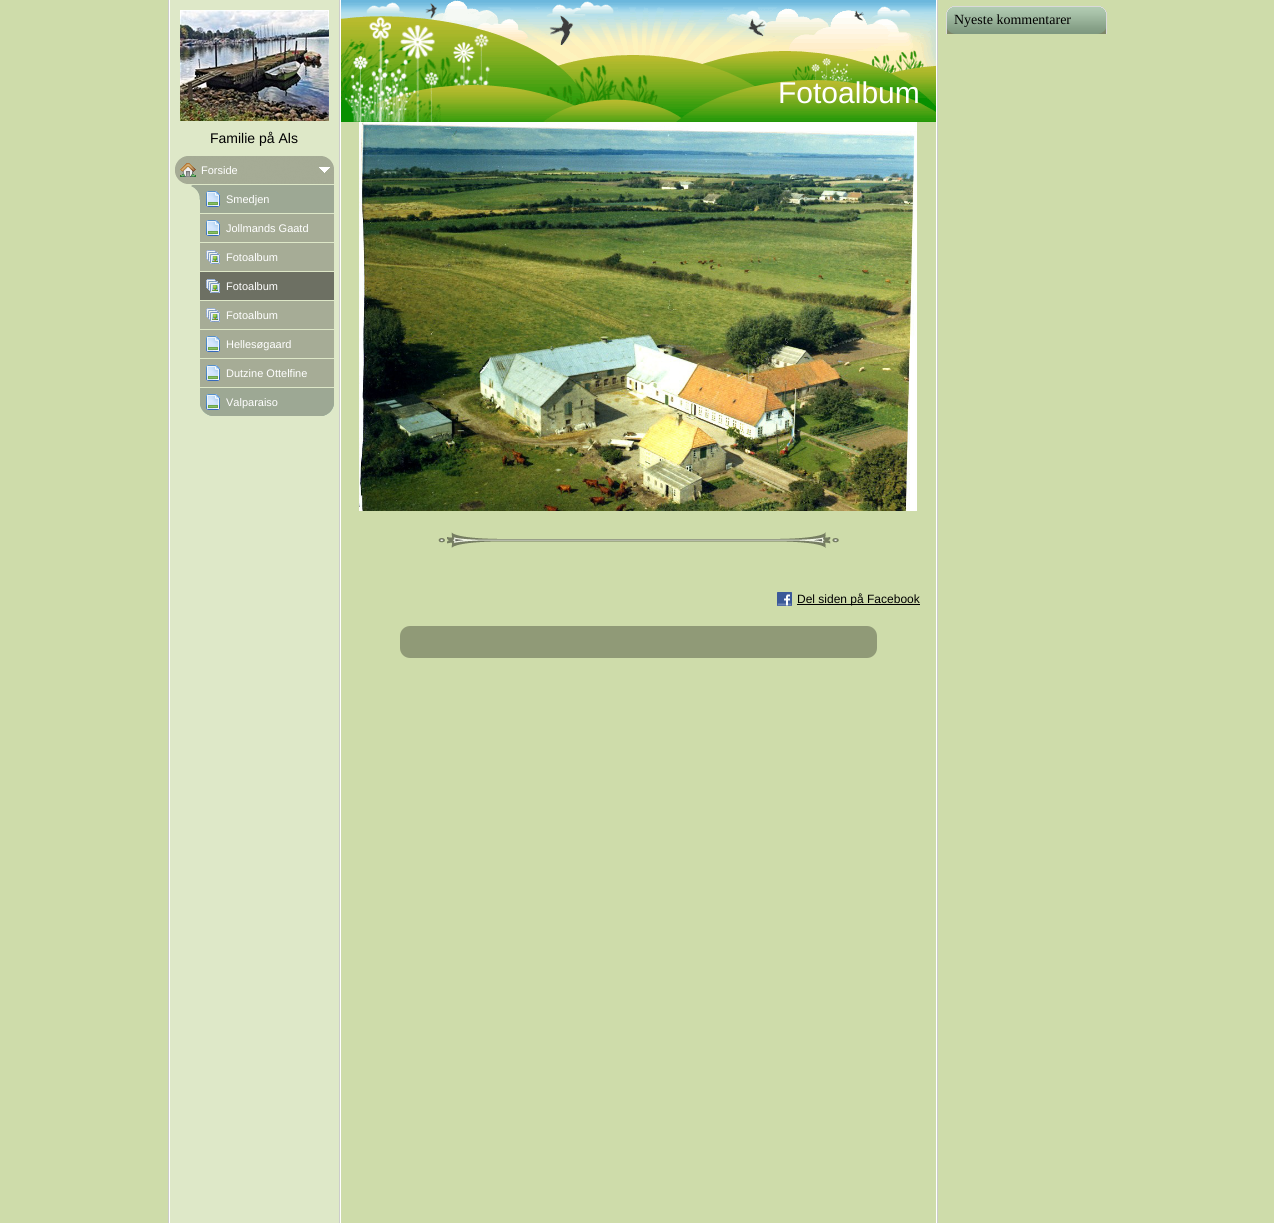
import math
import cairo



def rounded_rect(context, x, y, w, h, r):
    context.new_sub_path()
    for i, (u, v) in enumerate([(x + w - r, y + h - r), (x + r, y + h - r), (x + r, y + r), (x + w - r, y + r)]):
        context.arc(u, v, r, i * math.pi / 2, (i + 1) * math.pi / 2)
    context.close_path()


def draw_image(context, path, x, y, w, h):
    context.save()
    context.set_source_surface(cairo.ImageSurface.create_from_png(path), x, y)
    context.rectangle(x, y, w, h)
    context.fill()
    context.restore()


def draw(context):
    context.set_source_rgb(206 / 255, 220 / 255, 170 / 255)
    context.paint()
    context.set_source_rgb(210 / 255, 253 / 255, 212 / 255)
    rounded_rect(context, 946, 6, 161, 28, 10)
    context.fill()
    draw_image(context, "images/1.png", 946, 6, 161, 28)
    context.set_source_rgb(1, 1, 1)
    context.rectangle(169, 0, 768, 1223)
    context.fill()
    context.set_source_rgb(204 / 255, 204 / 255, 204 / 255)
    context.rectangle(168, 0, 1, 1223)
    context.fill()
    context.set_source_rgb(222 / 255, 232 / 255, 200 / 255)
    context.rectangle(170, 0, 169, 1223)
    context.fill()
    draw_image(context, "images/2.png", 180, 10, 149, 111)
    draw_image(context, "images/3.png", 175, 156, 159, 28)
    draw_image(context, "images/4.png", 180, 163, 16, 14)
    draw_image(context, "images/5.png", 319, 167, 11, 6)
    draw_image(context, "images/6.png", 191, 185, 143, 28)
    draw_image(context, "images/7.png", 206, 191, 14, 16)
    context.set_source_rgb(166 / 255, 172 / 255, 150 / 255)
    context.rectangle(200, 214, 134, 28)
    context.fill()
    draw_image(context, "images/8.png", 206, 220, 14, 16)
    context.rectangle(200, 243, 134, 28)
    context.fill()
    draw_image(context, "images/9.png", 206, 250, 14, 14)
    context.set_source_rgb(109 / 255, 112 / 255, 99 / 255)
    context.rectangle(200, 272, 134, 28)
    context.fill()
    draw_image(context, "images/10.png", 206, 279, 14, 14)
    context.set_source_rgb(166 / 255, 172 / 255, 150 / 255)
    context.rectangle(200, 301, 134, 28)
    context.fill()
    draw_image(context, "images/9.png", 206, 308, 14, 14)
    context.rectangle(200, 330, 134, 28)
    context.fill()
    draw_image(context, "images/8.png", 206, 336, 14, 16)
    context.rectangle(200, 359, 134, 28)
    context.fill()
    draw_image(context, "images/8.png", 206, 365, 14, 16)
    draw_image(context, "images/11.png", 200, 388, 134, 28)
    draw_image(context, "images/7.png", 206, 394, 14, 16)
    context.set_source_rgb(204 / 255, 204 / 255, 204 / 255)
    context.rectangle(339, 0, 1, 1223)
    context.fill()
    context.set_source_rgb(206 / 255, 220 / 255, 170 / 255)
    context.rectangle(341, 122, 595, 1101)
    context.fill()
    draw_image(context, "images/12.png", 341, 0, 595, 122)
    draw_image(context, "images/13.png", 359, 122, 558, 389)
    draw_image(context, "images/14.png", 438, 532, 401, 16)
    draw_image(context, "images/15.png", 777, 592, 15, 14)
    context.set_source_rgb(0, 0, 0)
    context.rectangle(797, 604, 123, 1)
    context.fill()
    context.set_source_rgb(144 / 255, 154 / 255, 119 / 255)
    rounded_rect(context, 400, 626, 477, 32, 10)
    context.fill()
    context.set_source_rgb(204 / 255, 204 / 255, 204 / 255)
    context.rectangle(937, 0, 1, 1223)
    context.fill()
    context.select_font_face("Liberation Serif")
    context.set_font_size(14)
    context.set_source_rgb(0, 0, 0)
    context.move_to(954, 24)
    context.show_text("Nyeste kommentarer")
    context.select_font_face("Liberation Sans")
    context.move_to(210, 143)
    context.show_text("Familie på Als")
    context.set_font_size(11)
    context.set_source_rgb(1, 1, 1)
    context.move_to(201, 174)
    context.show_text("Forside")
    context.move_to(226, 203)
    context.show_text("Smedjen")
    context.move_to(226, 232)
    context.show_text("Jollmands Gaatd")
    context.move_to(226, 261)
    context.show_text("Fotoalbum")
    context.move_to(226, 290)
    context.show_text("Fotoalbum")
    context.move_to(226, 319)
    context.show_text("Fotoalbum")
    context.move_to(226, 348)
    context.show_text("Hellesøgaard")
    context.move_to(226, 377)
    context.show_text("Dutzine Ottelfine")
    context.move_to(226, 406)
    context.show_text("Valparaiso")
    context.set_font_size(30)
    context.move_to(778, 103)
    context.show_text("Fotoalbum")
    context.set_font_size(12)
    context.set_source_rgb(0, 0, 0)
    context.move_to(797, 603)
    context.show_text("Del siden på Facebook")


surface = cairo.ImageSurface(cairo.Format.RGB24, 1274, 1223)
context = cairo.Context(surface)
options = cairo.FontOptions()
options.set_hint_metrics(cairo.HintMetrics.OFF)
options.set_hint_style(cairo.HintStyle.NONE)
context.set_font_options(options)
context.set_miter_limit(4)
draw(context)
surface.write_to_png("out.png")
